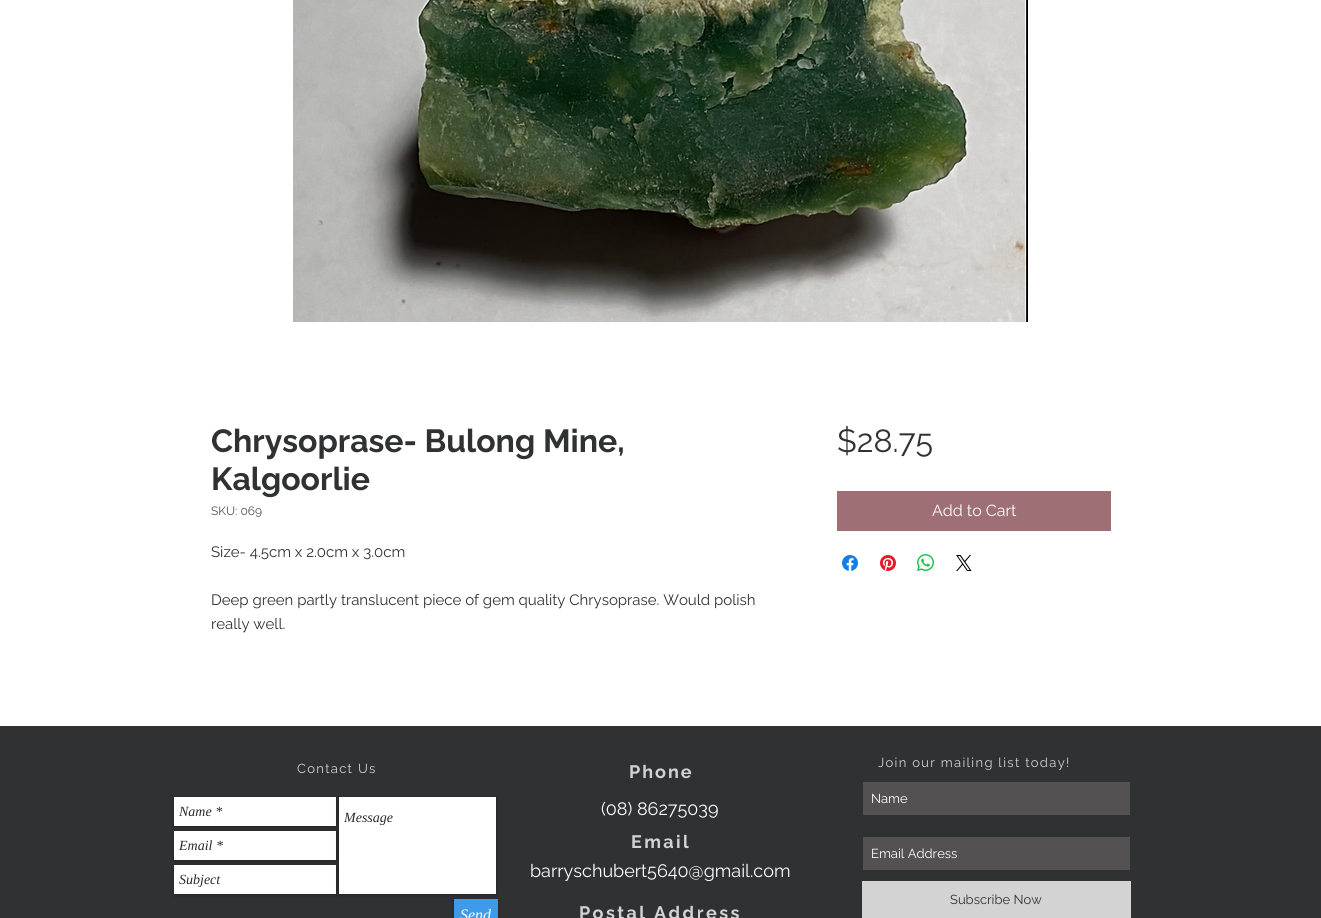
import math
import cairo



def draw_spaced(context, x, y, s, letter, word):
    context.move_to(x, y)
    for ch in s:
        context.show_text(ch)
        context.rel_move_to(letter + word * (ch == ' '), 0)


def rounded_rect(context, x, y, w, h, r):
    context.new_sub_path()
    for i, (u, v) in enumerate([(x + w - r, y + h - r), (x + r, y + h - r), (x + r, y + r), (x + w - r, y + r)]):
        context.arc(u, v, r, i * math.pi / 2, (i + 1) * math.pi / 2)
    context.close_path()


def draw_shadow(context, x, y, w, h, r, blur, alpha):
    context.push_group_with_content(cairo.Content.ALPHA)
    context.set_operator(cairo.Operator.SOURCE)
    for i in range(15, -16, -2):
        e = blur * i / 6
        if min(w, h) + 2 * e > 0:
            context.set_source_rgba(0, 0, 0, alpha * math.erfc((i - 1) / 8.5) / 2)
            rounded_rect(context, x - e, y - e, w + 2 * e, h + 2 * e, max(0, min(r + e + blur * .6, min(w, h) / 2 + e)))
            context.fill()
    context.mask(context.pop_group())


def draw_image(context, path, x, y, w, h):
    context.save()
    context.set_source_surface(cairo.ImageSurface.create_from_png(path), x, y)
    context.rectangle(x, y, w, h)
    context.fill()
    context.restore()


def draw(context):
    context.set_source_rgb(1, 1, 1)
    context.paint()
    draw_image(context, "images/1.png", 293, 0, 735, 322)
    context.set_source_rgb(158 / 255, 112 / 255, 118 / 255)
    context.rectangle(837, 491, 274, 40)
    context.fill()
    draw_image(context, "images/2.png", 842, 555, 16, 16)
    draw_image(context, "images/3.png", 880, 555, 16, 16)
    draw_image(context, "images/4.png", 917, 554, 17, 17)
    draw_image(context, "images/5.png", 956, 555, 16, 16)
    context.set_source_rgb(48 / 255, 49 / 255, 50 / 255)
    context.rectangle(0, 726, 1321, 192)
    context.fill()
    context.set_source_rgb(0, 0, 0)
    draw_shadow(context, 174, 798, 162, 29, 0, 2, 0.3)
    context.set_source_rgb(1, 1, 1)
    context.rectangle(174, 797, 162, 29)
    context.fill()
    context.set_source_rgb(0, 0, 0)
    draw_shadow(context, 174, 832, 162, 29, 0, 2, 0.3)
    context.set_source_rgb(1, 1, 1)
    context.rectangle(174, 831, 162, 29)
    context.fill()
    context.set_source_rgb(0, 0, 0)
    draw_shadow(context, 174, 866, 162, 29, 0, 2, 0.3)
    context.set_source_rgb(1, 1, 1)
    context.rectangle(174, 865, 162, 29)
    context.fill()
    context.set_source_rgb(0, 0, 0)
    draw_shadow(context, 339, 798, 157, 97, 0, 2, 0.3)
    context.set_source_rgb(1, 1, 1)
    context.rectangle(339, 797, 157, 97)
    context.fill()
    context.set_source_rgb(0, 0, 0)
    draw_shadow(context, 454, 900, 44, 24, 0, 2, 0.3)
    context.set_source_rgb(61 / 255, 155 / 255, 233 / 255)
    context.rectangle(454, 899, 44, 19)
    context.fill()
    context.set_source_rgb(83 / 255, 81 / 255, 81 / 255)
    context.rectangle(863, 782, 267, 33)
    context.fill()
    context.rectangle(863, 837, 267, 33)
    context.fill()
    context.set_source_rgb(211 / 255, 211 / 255, 211 / 255)
    context.rectangle(862, 881, 269, 37)
    context.fill()
    context.select_font_face("Raleway", cairo.FontSlant.NORMAL, cairo.FontWeight.BOLD)
    context.set_font_size(32)
    context.set_source_rgb(48 / 255, 49 / 255, 50 / 255)
    context.move_to(211, 452)
    context.show_text("Chrysoprase- Bulong Mine,")
    context.move_to(211, 490)
    context.show_text("Kalgoorlie")
    context.select_font_face("Raleway")
    context.set_font_size(12)
    context.set_source_rgb(83 / 255, 81 / 255, 81 / 255)
    context.move_to(211, 515)
    context.show_text("SKU: 069")
    context.set_font_size(15)
    context.set_source_rgb(48 / 255, 49 / 255, 50 / 255)
    context.move_to(211, 557)
    context.show_text("Size- 4.5cm x 2.0cm x 3.0cm")
    context.move_to(211, 605)
    context.show_text("Deep green partly translucent piece of gem quality Chrysoprase. Would polish")
    context.move_to(211, 629)
    context.show_text("really well.")
    context.set_font_size(32)
    context.move_to(837, 452)
    context.show_text("$28.75")
    context.set_font_size(16)
    context.set_source_rgb(1, 1, 1)
    context.move_to(932, 516)
    context.show_text("Add to Cart")
    context.set_font_size(13)
    context.set_source_rgb(211 / 255, 211 / 255, 211 / 255)
    draw_spaced(context, 297, 773, "Contact Us", 1.3, 0)
    context.select_font_face("Raleway", cairo.FontSlant.NORMAL, cairo.FontWeight.BOLD)
    context.set_font_size(18)
    draw_spaced(context, 629, 778, "Phone", 2, 0)
    context.select_font_face("Raleway")
    context.set_font_size(13)
    draw_spaced(context, 878, 767, "Join our mailing list today!", 1.3, 0)
    context.select_font_face("Liberation Serif", cairo.FontSlant.ITALIC)
    context.set_font_size(14)
    context.set_source_rgb(42 / 255, 42 / 255, 42 / 255)
    context.move_to(179, 816)
    context.show_text("Name *")
    context.move_to(344, 822)
    context.show_text("Message")
    context.move_to(179, 850)
    context.show_text("Email *")
    context.move_to(179, 884)
    context.show_text("Subject")
    context.set_font_size(16)
    context.set_source_rgb(1, 1, 1)
    context.move_to(460, 920)
    context.show_text("Send")
    context.select_font_face("Raleway")
    context.set_font_size(18)
    context.move_to(601, 815)
    context.show_text("(08) 86275039")
    context.set_font_size(13)
    context.move_to(871, 803)
    context.show_text("Name")
    context.move_to(871, 858)
    context.show_text("Email Address")
    context.set_source_rgb(48 / 255, 49 / 255, 50 / 255)
    context.move_to(950, 904)
    context.show_text("Subscribe Now")
    context.select_font_face("Raleway", cairo.FontSlant.NORMAL, cairo.FontWeight.BOLD)
    context.set_font_size(18)
    context.set_source_rgb(211 / 255, 211 / 255, 211 / 255)
    draw_spaced(context, 631, 848, "Email", 2.4, 0)
    context.select_font_face("Raleway")
    context.set_source_rgb(1, 1, 1)
    context.move_to(530, 877)
    context.show_text("barryschubert5640@gmail.com")
    context.select_font_face("Raleway", cairo.FontSlant.NORMAL, cairo.FontWeight.BOLD)
    context.set_source_rgb(211 / 255, 211 / 255, 211 / 255)
    draw_spaced(context, 579, 919, "Postal Address", 2.4, 0)


surface = cairo.ImageSurface(cairo.Format.RGB24, 1321, 918)
context = cairo.Context(surface)
options = cairo.FontOptions()
options.set_hint_metrics(cairo.HintMetrics.OFF)
options.set_hint_style(cairo.HintStyle.NONE)
context.set_font_options(options)
context.set_miter_limit(4)
draw(context)
surface.write_to_png("out.png")
